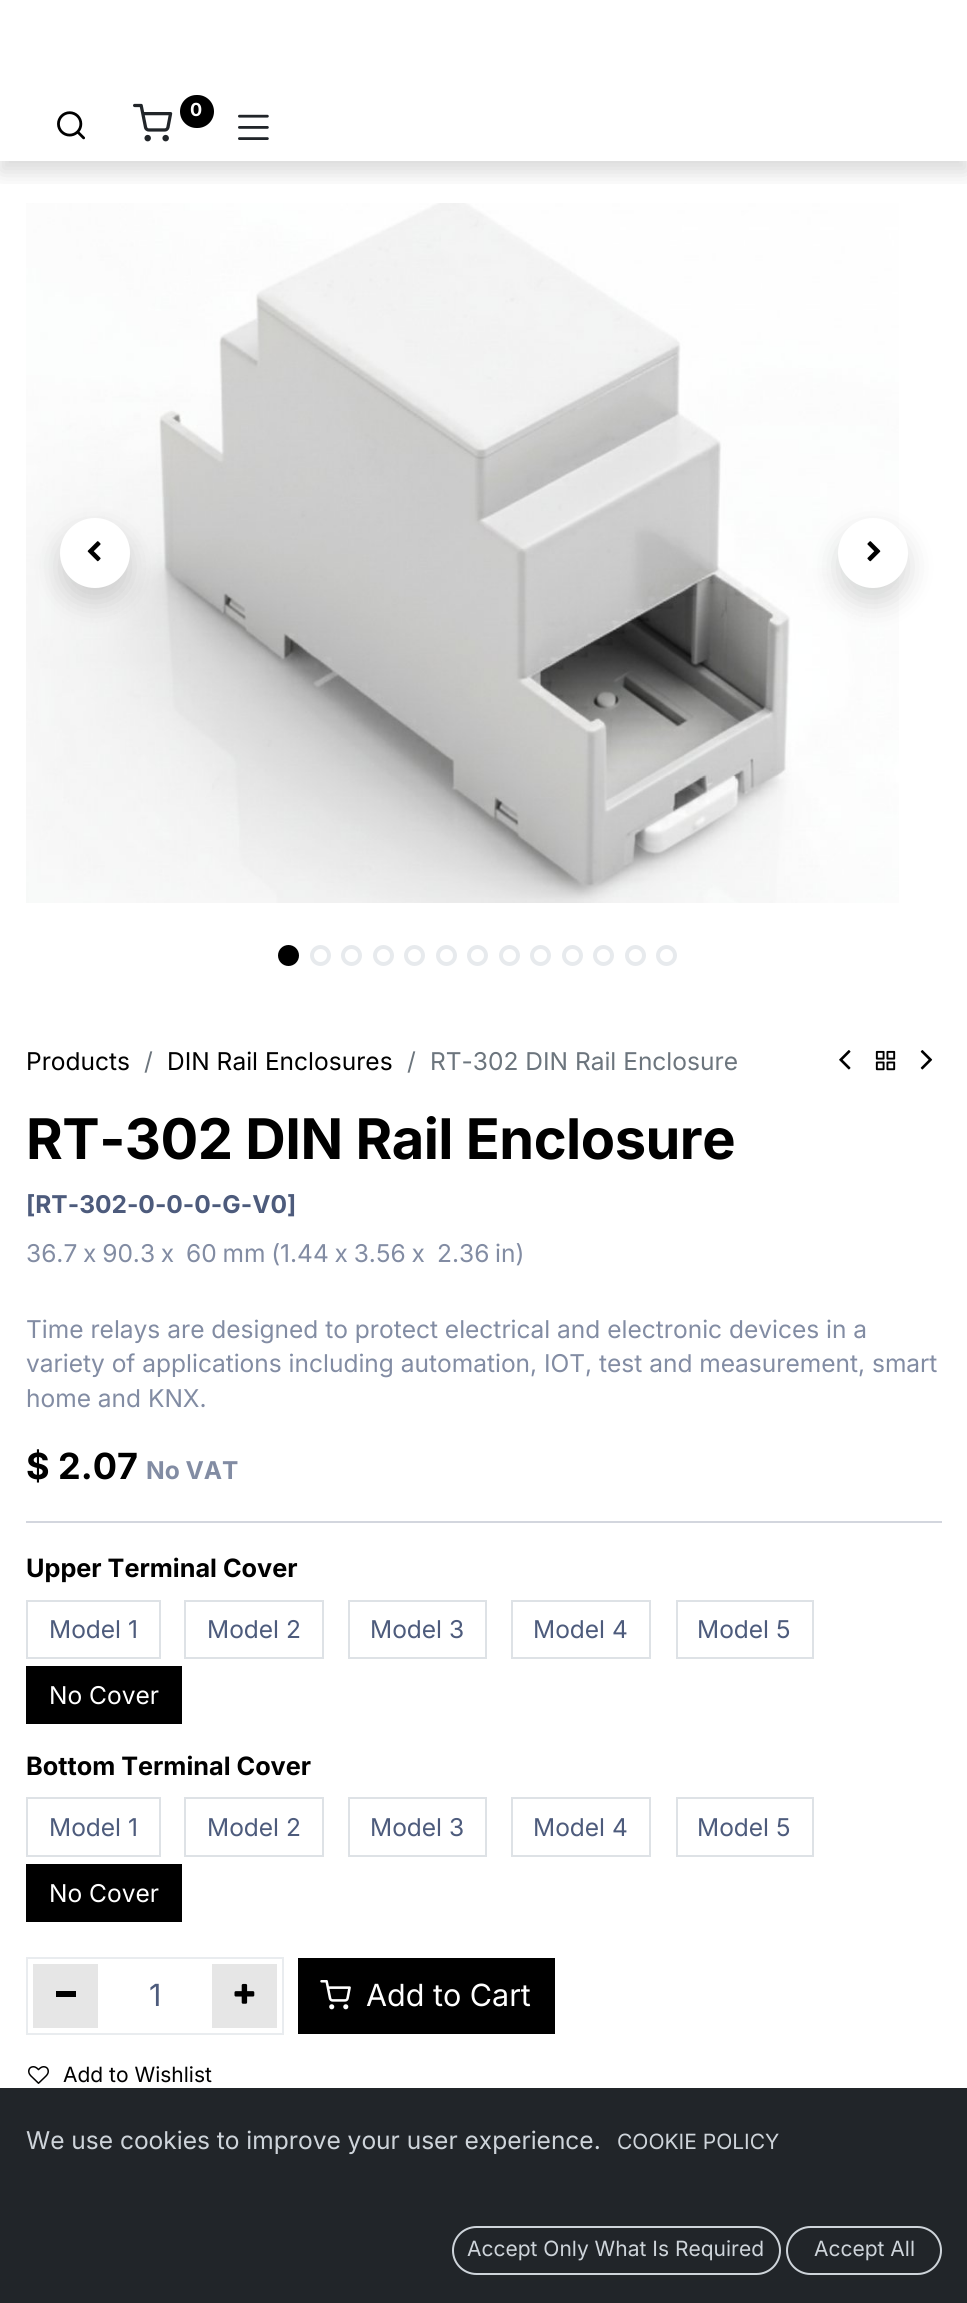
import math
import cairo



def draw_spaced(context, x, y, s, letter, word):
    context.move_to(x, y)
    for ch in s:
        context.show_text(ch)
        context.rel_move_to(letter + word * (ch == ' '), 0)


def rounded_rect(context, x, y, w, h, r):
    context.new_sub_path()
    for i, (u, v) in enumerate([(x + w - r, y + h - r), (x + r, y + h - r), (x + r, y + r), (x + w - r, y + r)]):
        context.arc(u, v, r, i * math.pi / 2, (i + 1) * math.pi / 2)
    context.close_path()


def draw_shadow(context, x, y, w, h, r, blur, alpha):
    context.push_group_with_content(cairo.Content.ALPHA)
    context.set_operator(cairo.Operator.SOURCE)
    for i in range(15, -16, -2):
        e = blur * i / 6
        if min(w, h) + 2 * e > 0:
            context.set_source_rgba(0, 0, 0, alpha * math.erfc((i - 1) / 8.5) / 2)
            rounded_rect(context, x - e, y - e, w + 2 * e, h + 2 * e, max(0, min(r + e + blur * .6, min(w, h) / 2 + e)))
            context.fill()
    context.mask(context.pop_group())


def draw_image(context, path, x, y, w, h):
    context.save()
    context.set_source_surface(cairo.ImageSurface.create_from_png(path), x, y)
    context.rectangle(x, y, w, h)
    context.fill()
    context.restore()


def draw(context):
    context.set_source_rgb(1, 1, 1)
    context.paint()
    draw_image(context, "images/4.png", 26, 203, 873, 700)
    context.save()
    context.rectangle(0, 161, 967, 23)
    context.clip()
    context.set_source_rgb(0, 0, 0)
    draw_shadow(context, 0, 11, 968, 161, 0, 10.5, 0.15)
    context.restore()
    draw_image(context, "images/1.png", 133, 103, 40, 39)
    context.set_source_rgb(0, 0, 0)
    rounded_rect(context, 180, 95, 34, 33, 16.5)
    context.fill()
    draw_image(context, "images/2.png", 57, 111, 28, 29)
    draw_image(context, "images/3.png", 238, 114, 31, 26)
    context.set_source_rgb(0, 0, 0)
    draw_shadow(context, 60, 532, 70, 70, 35, 14, 0.15)
    context.set_source_rgb(1, 1, 1)
    context.arc(95, 553, 35, 0, 2 * math.pi)
    context.fill()
    draw_image(context, "images/5.png", 87, 541, 14, 21)
    context.set_source_rgb(0, 0, 0)
    draw_shadow(context, 838, 532, 70, 70, 35, 14, 0.15)
    context.set_source_rgb(1, 1, 1)
    context.arc(873, 553, 35, 0, 2 * math.pi)
    context.fill()
    draw_image(context, "images/6.png", 867, 541, 14, 21)
    context.set_source_rgb(0, 0, 0)
    context.arc(288.5, 955.5, 8.5, 0, 2 * math.pi)
    context.fill_preserve()
    context.set_line_width(4)
    context.stroke()
    context.arc(320.5, 955.5, 8.5, 0, 2 * math.pi)
    context.set_source_rgb(231 / 255, 234 / 255, 237 / 255)
    context.stroke()
    context.arc(351.5, 955.5, 8.5, 0, 2 * math.pi)
    context.stroke()
    context.arc(383.5, 955.5, 8.5, 0, 2 * math.pi)
    context.stroke()
    context.arc(414.5, 955.5, 8.5, 0, 2 * math.pi)
    context.stroke()
    context.arc(446.5, 955.5, 8.5, 0, 2 * math.pi)
    context.stroke()
    context.arc(477.5, 955.5, 8.5, 0, 2 * math.pi)
    context.stroke()
    context.arc(509.5, 955.5, 8.5, 0, 2 * math.pi)
    context.stroke()
    context.arc(540.5, 955.5, 8.5, 0, 2 * math.pi)
    context.stroke()
    context.arc(572.5, 955.5, 8.5, 0, 2 * math.pi)
    context.stroke()
    context.arc(603.5, 955.5, 8.5, 0, 2 * math.pi)
    context.stroke()
    context.arc(635.5, 955.5, 8.5, 0, 2 * math.pi)
    context.stroke()
    context.arc(666.5, 955.5, 8.5, 0, 2 * math.pi)
    context.stroke()
    draw_image(context, "images/7.png", 839, 1050, 12, 20)
    draw_image(context, "images/8.png", 875, 1050, 21, 21)
    draw_image(context, "images/9.png", 920, 1050, 13, 20)
    context.set_source_rgb(211 / 255, 214 / 255, 222 / 255)
    context.rectangle(26, 1521, 916, 2)
    context.fill()
    context.rectangle(27, 1601, 133, 57)
    context.set_source_rgb(222 / 255, 226 / 255, 230 / 255)
    context.set_line_width(2)
    context.stroke()
    context.rectangle(185, 1601, 138, 57)
    context.stroke()
    context.rectangle(349, 1601, 137, 57)
    context.stroke()
    context.rectangle(512, 1601, 138, 57)
    context.stroke()
    context.rectangle(677, 1601, 136, 57)
    context.stroke()
    context.set_source_rgb(0, 0, 0)
    context.rectangle(26, 1666, 156, 58)
    context.fill()
    context.rectangle(27, 1798, 133, 58)
    context.set_source_rgb(222 / 255, 226 / 255, 230 / 255)
    context.stroke()
    context.rectangle(185, 1798, 138, 58)
    context.stroke()
    context.rectangle(349, 1798, 137, 58)
    context.stroke()
    context.rectangle(512, 1798, 138, 58)
    context.stroke()
    context.rectangle(677, 1798, 136, 58)
    context.stroke()
    context.set_source_rgb(0, 0, 0)
    context.rectangle(26, 1864, 156, 58)
    context.fill()
    context.rectangle(27, 1958, 256, 76)
    context.set_source_rgb(233 / 255, 236 / 255, 239 / 255)
    context.stroke()
    context.set_source_rgb(230 / 255, 230 / 255, 230 / 255)
    context.rectangle(33, 1964, 65, 64)
    context.fill()
    context.set_source_rgb(0, 0, 0)
    context.rectangle(56, 1991, 20, 6)
    context.fill()
    context.set_source_rgb(230 / 255, 230 / 255, 230 / 255)
    context.rectangle(212, 1964, 65, 64)
    context.fill()
    draw_image(context, "images/10.png", 234, 1983, 21, 21)
    context.set_source_rgb(0, 0, 0)
    context.rectangle(298, 1958, 257, 76)
    context.fill()
    draw_image(context, "images/11.png", 320, 1980, 31, 30)
    draw_image(context, "images/12.png", 28, 2066, 21, 18)
    context.set_source_rgb(33 / 255, 37 / 255, 41 / 255)
    context.rectangle(0, 2088, 967, 215)
    context.fill()
    rounded_rect(context, 453, 2227, 327, 47, 23.5)
    context.set_source_rgb(206 / 255, 212 / 255, 218 / 255)
    context.stroke()
    rounded_rect(context, 787, 2227, 154, 47, 23.5)
    context.stroke()
    context.select_font_face("Inter", cairo.FontSlant.NORMAL, cairo.FontWeight.BOLD)
    context.set_font_size(18)
    context.set_source_rgb(1, 1, 1)
    context.move_to(190, 116)
    context.show_text("0")
    context.select_font_face("Inter")
    context.set_font_size(24.5)
    context.set_source_rgb(0, 0, 0)
    context.move_to(26, 1070)
    context.show_text("Products")
    context.set_source_rgb(108 / 255, 117 / 255, 125 / 255)
    context.move_to(144, 1070)
    context.show_text("/")
    context.set_source_rgb(0, 0, 0)
    context.move_to(167, 1070)
    context.show_text("DIN Rail Enclosures")
    context.set_source_rgb(108 / 255, 117 / 255, 125 / 255)
    context.move_to(407, 1070)
    context.show_text("/")
    context.move_to(430, 1070)
    context.show_text("RT-302 DIN Rail Enclosure")
    context.select_font_face("Inter", cairo.FontSlant.NORMAL, cairo.FontWeight.BOLD)
    context.set_font_size(56)
    context.set_source_rgb(0, 0, 0)
    draw_spaced(context, 26, 1159, "RT-302 DIN Rail Enclosure", -0.5, 0)
    context.set_font_size(24.5)
    context.set_source_rgb(77 / 255, 91 / 255, 124 / 255)
    context.move_to(26, 1213)
    context.show_text("[RT-302-0-0-0-G-V0]")
    context.select_font_face("Inter")
    context.set_source_rgb(130 / 255, 140 / 255, 163 / 255)
    draw_spaced(context, 26, 1262, "36.7 x 90.3 x", 0, -1.1)
    draw_spaced(context, 186, 1262, "60 mm (1.44 x 3.56 x", 0, -1.1)
    draw_spaced(context, 437, 1262, "2.36 in)", 0, -1.1)
    context.move_to(26, 1338)
    context.show_text("Time relays are designed to protect electrical and electronic devices in a")
    context.move_to(26, 1372)
    context.show_text("variety of applications including automation, IOT, test and measurement, smart")
    context.move_to(26, 1407)
    context.show_text("home and KNX.")
    context.select_font_face("Inter", cairo.FontSlant.NORMAL, cairo.FontWeight.BOLD)
    context.set_font_size(36)
    context.set_source_rgb(0, 0, 0)
    context.move_to(26, 1479)
    context.show_text("$ 2.07")
    context.set_font_size(24.5)
    context.set_source_rgb(130 / 255, 140 / 255, 163 / 255)
    context.move_to(146, 1479)
    context.show_text("No VAT")
    context.set_font_size(25.25)
    context.set_source_rgb(0, 0, 0)
    context.move_to(26, 1577)
    context.show_text("Upper Terminal Cover")
    context.select_font_face("Inter")
    context.set_font_size(24.5)
    context.set_source_rgb(77 / 255, 91 / 255, 124 / 255)
    context.move_to(49, 1638)
    context.show_text("Model 1")
    context.move_to(207, 1638)
    context.show_text("Model 2")
    context.move_to(370, 1638)
    context.show_text("Model 3")
    context.move_to(533, 1638)
    context.show_text("Model 4")
    context.move_to(697, 1638)
    context.show_text("Model 5")
    context.set_source_rgb(1, 1, 1)
    context.move_to(49, 1704)
    context.show_text("No Cover")
    context.select_font_face("Inter", cairo.FontSlant.NORMAL, cairo.FontWeight.BOLD)
    context.set_font_size(25.25)
    context.set_source_rgb(0, 0, 0)
    context.move_to(26, 1775)
    context.show_text("Bottom Terminal Cover")
    context.select_font_face("Inter")
    context.set_font_size(24.5)
    context.set_source_rgb(77 / 255, 91 / 255, 124 / 255)
    context.move_to(49, 1836)
    context.show_text("Model 1")
    context.move_to(207, 1836)
    context.show_text("Model 2")
    context.move_to(370, 1836)
    context.show_text("Model 3")
    context.move_to(533, 1836)
    context.show_text("Model 4")
    context.move_to(697, 1836)
    context.show_text("Model 5")
    context.set_source_rgb(1, 1, 1)
    context.move_to(49, 1902)
    context.show_text("No Cover")
    context.set_font_size(30.5)
    context.set_source_rgb(77 / 255, 91 / 255, 124 / 255)
    context.move_to(149, 2006)
    context.show_text("1")
    context.set_source_rgb(1, 1, 1)
    context.move_to(366, 2006)
    context.show_text("Add to Cart")
    context.set_font_size(21)
    context.set_source_rgb(0, 0, 0)
    context.move_to(63, 2082)
    context.show_text("Add to Wishlist")
    context.set_font_size(24.5)
    context.set_source_rgb(206 / 255, 212 / 255, 218 / 255)
    context.move_to(26, 2149)
    context.show_text("We use cookies to improve your user experience.")
    context.set_font_size(21)
    context.move_to(617, 2149)
    context.show_text("COOKIE POLICY")
    context.move_to(467, 2256)
    context.show_text("Accept Only What Is Required")
    context.move_to(814, 2256)
    context.show_text("Accept All")


surface = cairo.ImageSurface(cairo.Format.RGB24, 967, 2303)
context = cairo.Context(surface)
options = cairo.FontOptions()
options.set_hint_metrics(cairo.HintMetrics.OFF)
options.set_hint_style(cairo.HintStyle.NONE)
context.set_font_options(options)
context.set_miter_limit(4)
draw(context)
surface.write_to_png("out.png")
